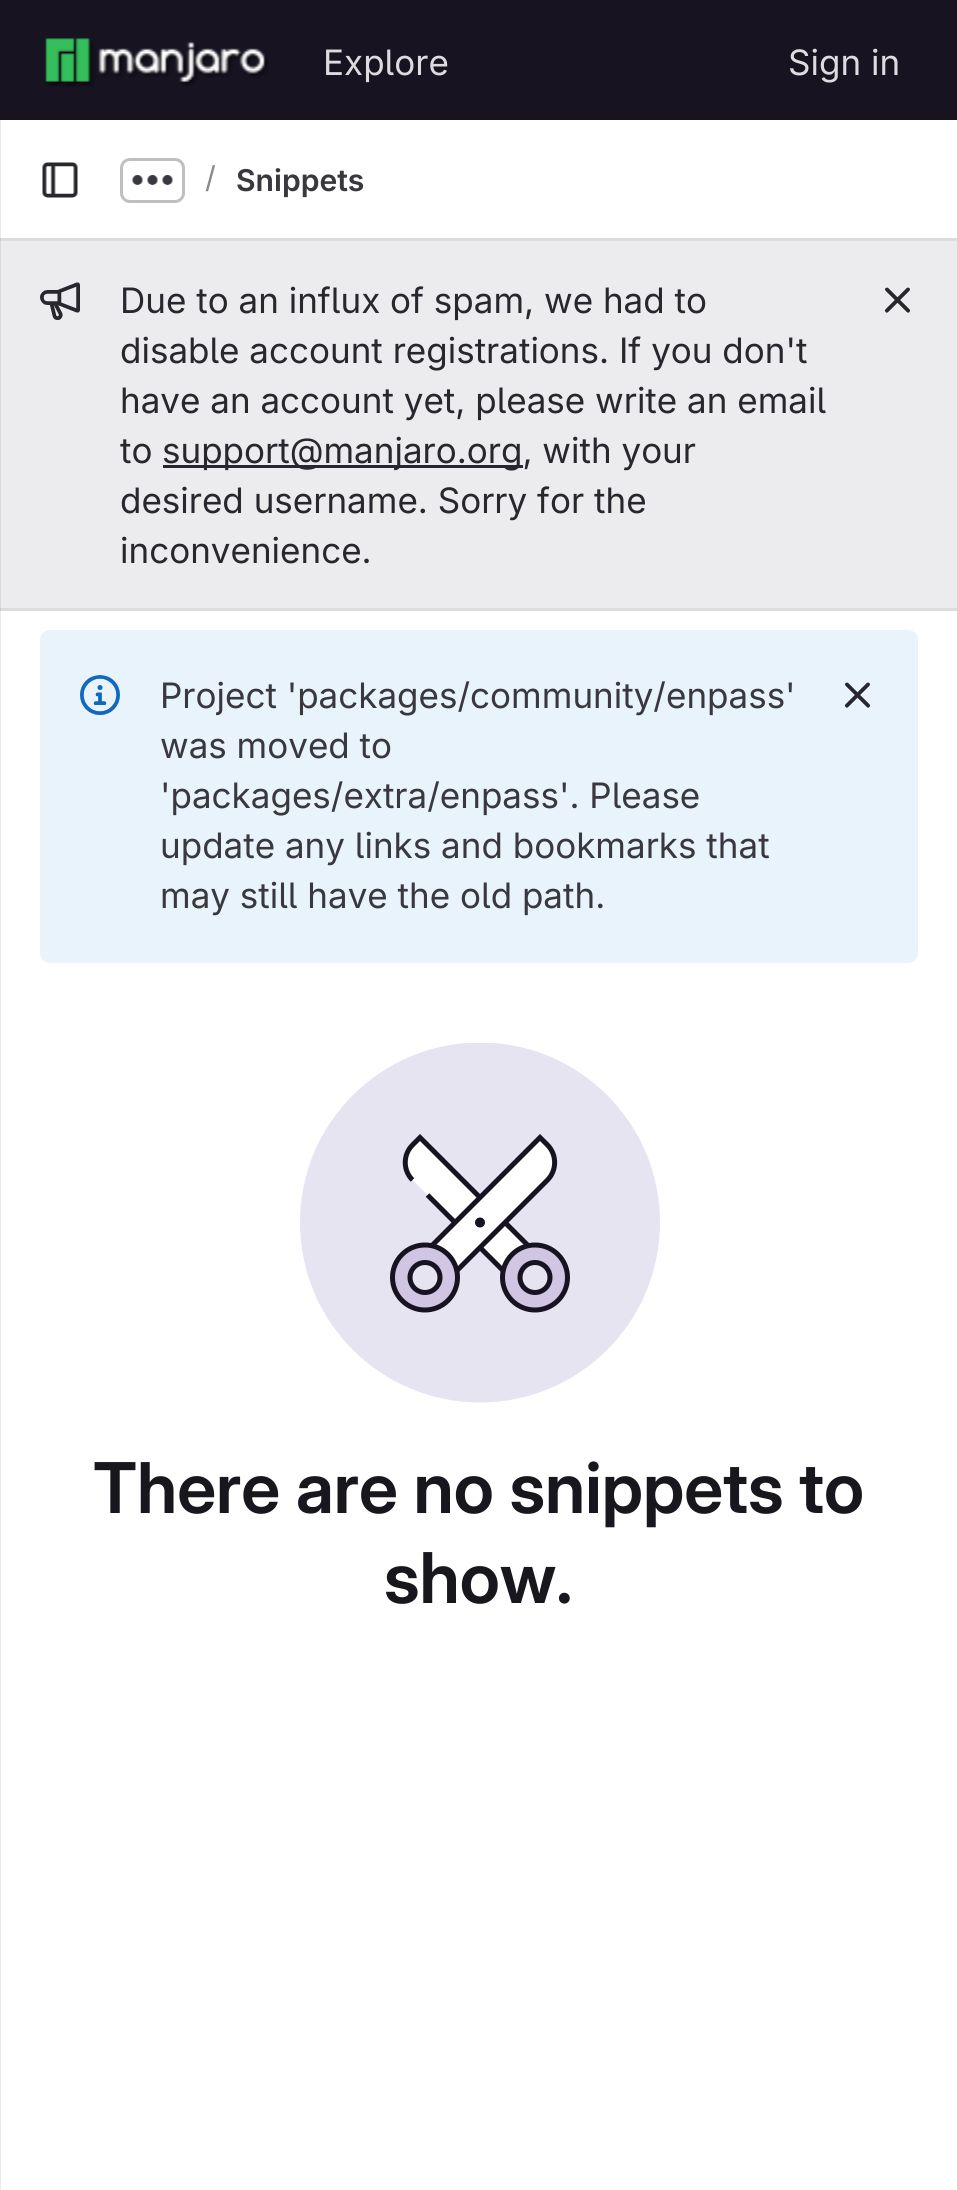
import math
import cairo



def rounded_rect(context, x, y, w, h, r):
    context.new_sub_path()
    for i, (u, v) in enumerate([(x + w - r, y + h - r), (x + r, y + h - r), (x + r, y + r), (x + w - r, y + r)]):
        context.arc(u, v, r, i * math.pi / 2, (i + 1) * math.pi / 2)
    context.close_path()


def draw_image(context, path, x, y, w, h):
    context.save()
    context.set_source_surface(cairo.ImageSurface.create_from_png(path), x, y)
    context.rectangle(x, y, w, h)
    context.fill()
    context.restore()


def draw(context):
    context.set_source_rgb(1, 1, 1)
    context.paint()
    context.set_source_rgb(235 / 255, 235 / 255, 235 / 255)
    context.rectangle(0, 120, 1, 2070)
    context.fill()
    context.set_source_rgb(23 / 255, 19 / 255, 33 / 255)
    context.rectangle(0, 0, 957, 120)
    context.fill()
    draw_image(context, "images/1.png", 45, 38, 224, 49)
    context.set_source_rgb(218 / 255, 218 / 255, 220 / 255)
    context.rectangle(0, 240, 1, 370)
    context.fill()
    context.set_source_rgb(220 / 255, 220 / 255, 222 / 255)
    context.rectangle(0, 238, 957, 3)
    context.fill()
    context.set_source_rgb(203 / 255, 203 / 255, 205 / 255)
    context.rectangle(0, 238, 1, 3)
    context.fill()
    draw_image(context, "images/2.png", 42, 162, 36, 36)
    rounded_rect(context, 121.5, 159.5, 62, 42, 8.5)
    context.set_source_rgb(191 / 255, 191 / 255, 195 / 255)
    context.set_line_width(3)
    context.stroke()
    draw_image(context, "images/3.png", 132, 175, 41, 10)
    context.set_source_rgb(236 / 255, 236 / 255, 239 / 255)
    context.rectangle(1, 241, 956, 367)
    context.fill()
    context.set_source_rgb(220 / 255, 220 / 255, 222 / 255)
    context.rectangle(0, 608, 957, 3)
    context.fill()
    context.set_source_rgb(203 / 255, 203 / 255, 205 / 255)
    context.rectangle(0, 608, 1, 3)
    context.fill()
    draw_image(context, "images/4.png", 40, 282, 40, 38)
    context.set_source_rgb(40 / 255, 39 / 255, 45 / 255)
    context.rectangle(163, 465, 360, 3)
    context.fill()
    draw_image(context, "images/5.png", 884, 287, 27, 26)
    context.set_source_rgb(233 / 255, 243 / 255, 252 / 255)
    rounded_rect(context, 40, 630, 878, 333, 10)
    context.fill()
    draw_image(context, "images/6.png", 80, 675, 40, 40)
    draw_image(context, "images/7.png", 844, 682, 27, 26)
    draw_image(context, "images/8.png", 300, 1043, 360, 360)
    context.select_font_face("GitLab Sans")
    context.set_font_size(35)
    context.set_source_rgb(220 / 255, 220 / 255, 222 / 255)
    context.move_to(323, 75)
    context.show_text("Explore")
    context.move_to(788, 75)
    context.show_text("Sign in")
    context.set_font_size(30)
    context.set_source_rgb(137 / 255, 136 / 255, 141 / 255)
    context.move_to(205, 188)
    context.show_text("/")
    context.select_font_face("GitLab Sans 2 SemiBold")
    context.set_source_rgb(58 / 255, 56 / 255, 63 / 255)
    context.move_to(236, 191)
    context.show_text("Snippets")
    context.select_font_face("GitLab Sans")
    context.set_font_size(35)
    context.set_source_rgb(40 / 255, 39 / 255, 45 / 255)
    context.move_to(120, 313)
    context.show_text("Due to an influx of spam, we had to")
    context.move_to(120, 363)
    context.show_text("disable account registrations. If you don't")
    context.move_to(120, 413)
    context.show_text("have an account yet, please write an email")
    context.move_to(120, 463)
    context.show_text("to")
    context.move_to(162, 463)
    context.show_text("support@manjaro.org, with your")
    context.move_to(120, 513)
    context.show_text("desired username. Sorry for the")
    context.move_to(120, 563)
    context.show_text("inconvenience.")
    context.set_source_rgb(58 / 255, 56 / 255, 63 / 255)
    context.move_to(160, 708)
    context.show_text("Project 'packages/community/enpass'")
    context.move_to(160, 758)
    context.show_text("was moved to")
    context.move_to(160, 808)
    context.show_text("'packages/extra/enpass'. Please")
    context.move_to(160, 858)
    context.show_text("update any links and bookmarks that")
    context.move_to(160, 908)
    context.show_text("may still have the old path.")
    context.select_font_face("GitLab Sans SemiBold")
    context.set_font_size(70)
    context.set_source_rgb(24 / 255, 23 / 255, 29 / 255)
    context.move_to(93, 1513)
    context.show_text("There are no snippets to")
    context.move_to(384, 1603)
    context.show_text("show.")


surface = cairo.ImageSurface(cairo.Format.RGB24, 957, 2190)
context = cairo.Context(surface)
options = cairo.FontOptions()
options.set_hint_metrics(cairo.HintMetrics.OFF)
options.set_hint_style(cairo.HintStyle.NONE)
context.set_font_options(options)
context.set_miter_limit(4)
draw(context)
surface.write_to_png("out.png")
